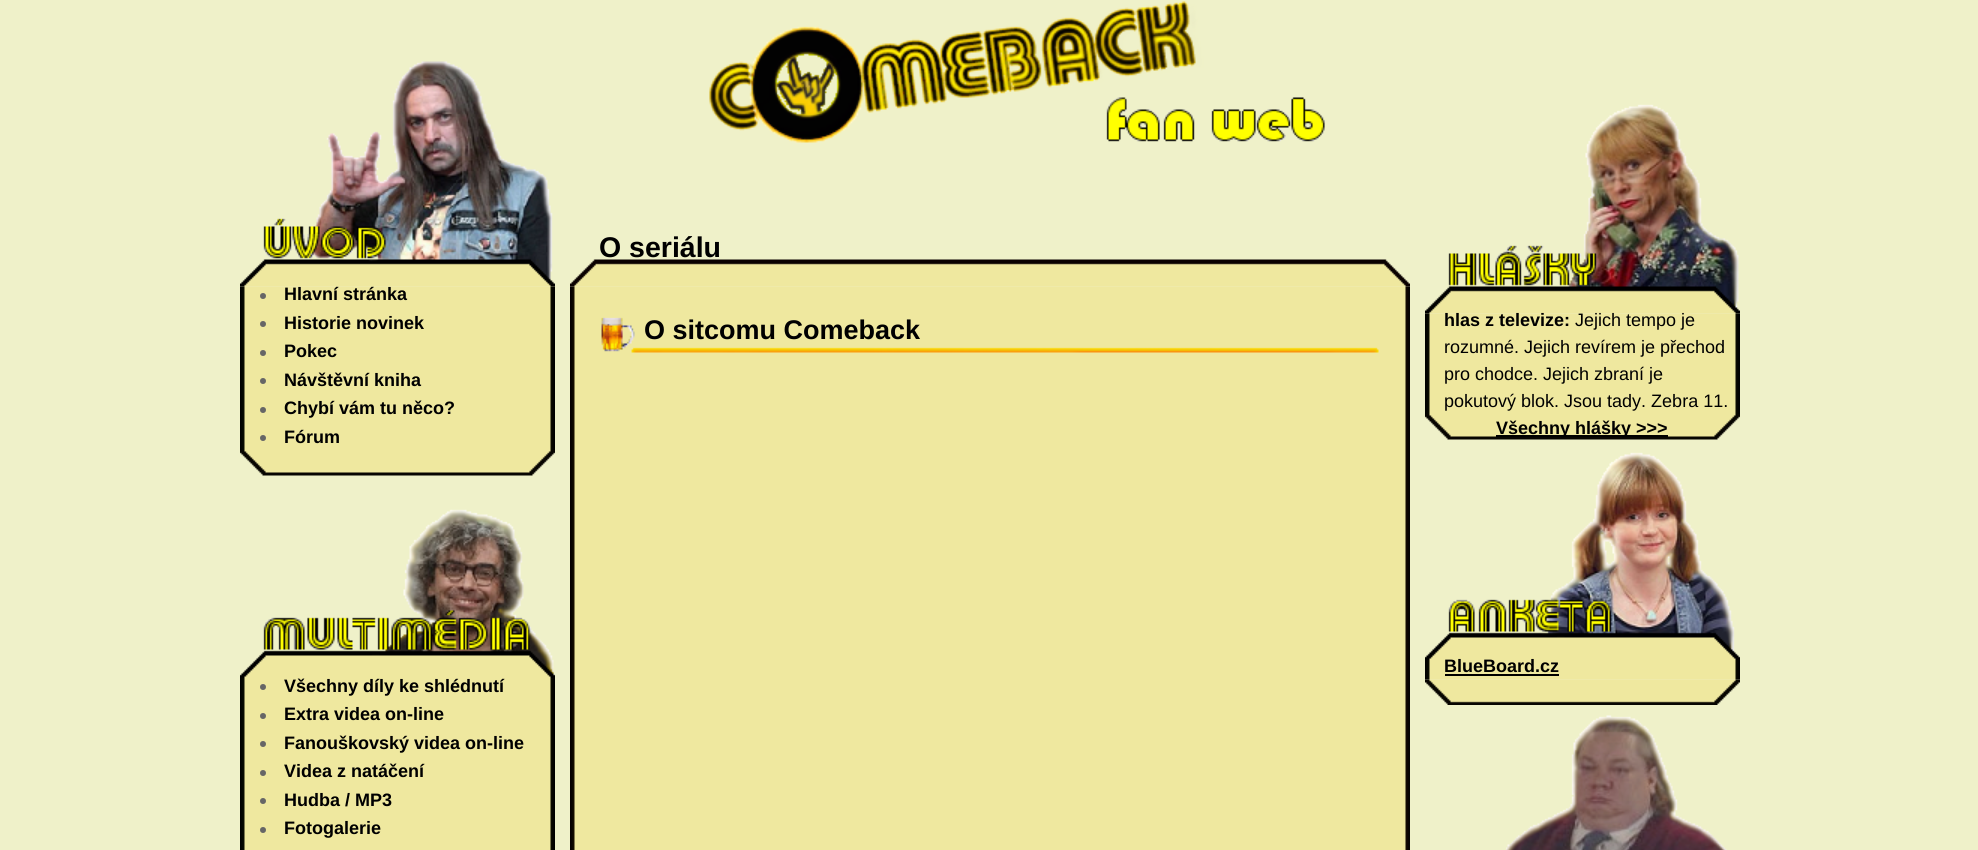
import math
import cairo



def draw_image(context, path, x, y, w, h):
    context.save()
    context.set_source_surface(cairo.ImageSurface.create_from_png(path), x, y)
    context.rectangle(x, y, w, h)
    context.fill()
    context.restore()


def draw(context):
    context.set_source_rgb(239 / 255, 241 / 255, 201 / 255)
    context.paint()
    draw_image(context, "images/1.png", 709, 1, 616, 142)
    draw_image(context, "images/2.png", 240, 61, 315, 226)
    draw_image(context, "images/3.png", 240, 286, 315, 164)
    context.set_source_rgb(102 / 255, 102 / 255, 102 / 255)
    context.arc(263, 296, 3, 0, 2 * math.pi)
    context.fill()
    context.arc(263, 324, 3, 0, 2 * math.pi)
    context.fill()
    context.arc(263, 353, 3, 0, 2 * math.pi)
    context.fill()
    context.arc(263, 381, 3, 0, 2 * math.pi)
    context.fill()
    context.arc(263, 410, 3, 0, 2 * math.pi)
    context.fill()
    context.arc(263, 438, 3, 0, 2 * math.pi)
    context.fill()
    draw_image(context, "images/4.png", 240, 450, 315, 26)
    draw_image(context, "images/5.png", 240, 509, 315, 169)
    draw_image(context, "images/6.png", 240, 678, 315, 172)
    context.arc(263, 687, 3, 0, 2 * math.pi)
    context.fill()
    context.arc(263, 716, 3, 0, 2 * math.pi)
    context.fill()
    context.arc(263, 744, 3, 0, 2 * math.pi)
    context.fill()
    context.arc(263, 773, 3, 0, 2 * math.pi)
    context.fill()
    context.arc(263, 801, 3, 0, 2 * math.pi)
    context.fill()
    context.arc(263, 830, 3, 0, 2 * math.pi)
    context.fill()
    draw_image(context, "images/7.png", 570, 259, 840, 28)
    draw_image(context, "images/8.png", 570, 286, 840, 564)
    draw_image(context, "images/9.png", 601, 317, 778, 36)
    draw_image(context, "images/10.png", 1425, 104, 315, 210)
    draw_image(context, "images/11.png", 1425, 313, 315, 101)
    draw_image(context, "images/4.png", 1425, 414, 315, 26)
    context.set_source_rgb(0, 0, 0)
    context.rectangle(1496, 435, 172, 2)
    context.fill()
    draw_image(context, "images/12.png", 1425, 452, 315, 208)
    draw_image(context, "images/13.png", 1425, 660, 315, 20)
    context.rectangle(1445, 674, 114, 2)
    context.fill()
    draw_image(context, "images/14.png", 1425, 679, 315, 26)
    draw_image(context, "images/15.png", 1506, 715, 221, 135)
    context.select_font_face("Liberation Sans", cairo.FontSlant.NORMAL, cairo.FontWeight.BOLD)
    context.set_font_size(18)
    context.move_to(284, 300)
    context.show_text("Hlavní stránka")
    context.move_to(284, 329)
    context.show_text("Historie novinek")
    context.move_to(284, 357)
    context.show_text("Pokec")
    context.move_to(284, 386)
    context.show_text("Návštěvní kniha")
    context.move_to(284, 414)
    context.show_text("Chybí vám tu něco?")
    context.move_to(284, 443)
    context.show_text("Fórum")
    context.move_to(284, 692)
    context.show_text("Všechny díly ke shlédnutí")
    context.move_to(284, 720)
    context.show_text("Extra videa on-line")
    context.move_to(284, 749)
    context.show_text("Fanouškovský videa on-line")
    context.move_to(284, 777)
    context.show_text("Videa z natáčení")
    context.move_to(284, 806)
    context.show_text("Hudba / MP3")
    context.move_to(284, 834)
    context.show_text("Fotogalerie")
    context.set_font_size(28.5)
    context.move_to(599, 257)
    context.show_text("O seriálu")
    context.set_font_size(27)
    context.move_to(644, 339)
    context.show_text("O sitcomu Comeback")
    context.set_font_size(18)
    context.move_to(1444, 326)
    context.show_text("hlas z televize:")
    context.select_font_face("Liberation Sans")
    context.move_to(1575, 326)
    context.show_text("Jejich tempo je")
    context.move_to(1444, 353)
    context.show_text("rozumné. Jejich revírem je přechod")
    context.move_to(1444, 380)
    context.show_text("pro chodce. Jejich zbraní je")
    context.move_to(1444, 407)
    context.show_text("pokutový blok. Jsou tady. Zebra 11.")
    context.select_font_face("Liberation Sans", cairo.FontSlant.NORMAL, cairo.FontWeight.BOLD)
    context.move_to(1496, 434)
    context.show_text("Všechny hlášky >>>")
    context.move_to(1444, 672)
    context.show_text("BlueBoard.cz")


surface = cairo.ImageSurface(cairo.Format.RGB24, 1978, 850)
context = cairo.Context(surface)
options = cairo.FontOptions()
options.set_hint_metrics(cairo.HintMetrics.OFF)
options.set_hint_style(cairo.HintStyle.NONE)
context.set_font_options(options)
context.set_miter_limit(4)
draw(context)
surface.write_to_png("out.png")
